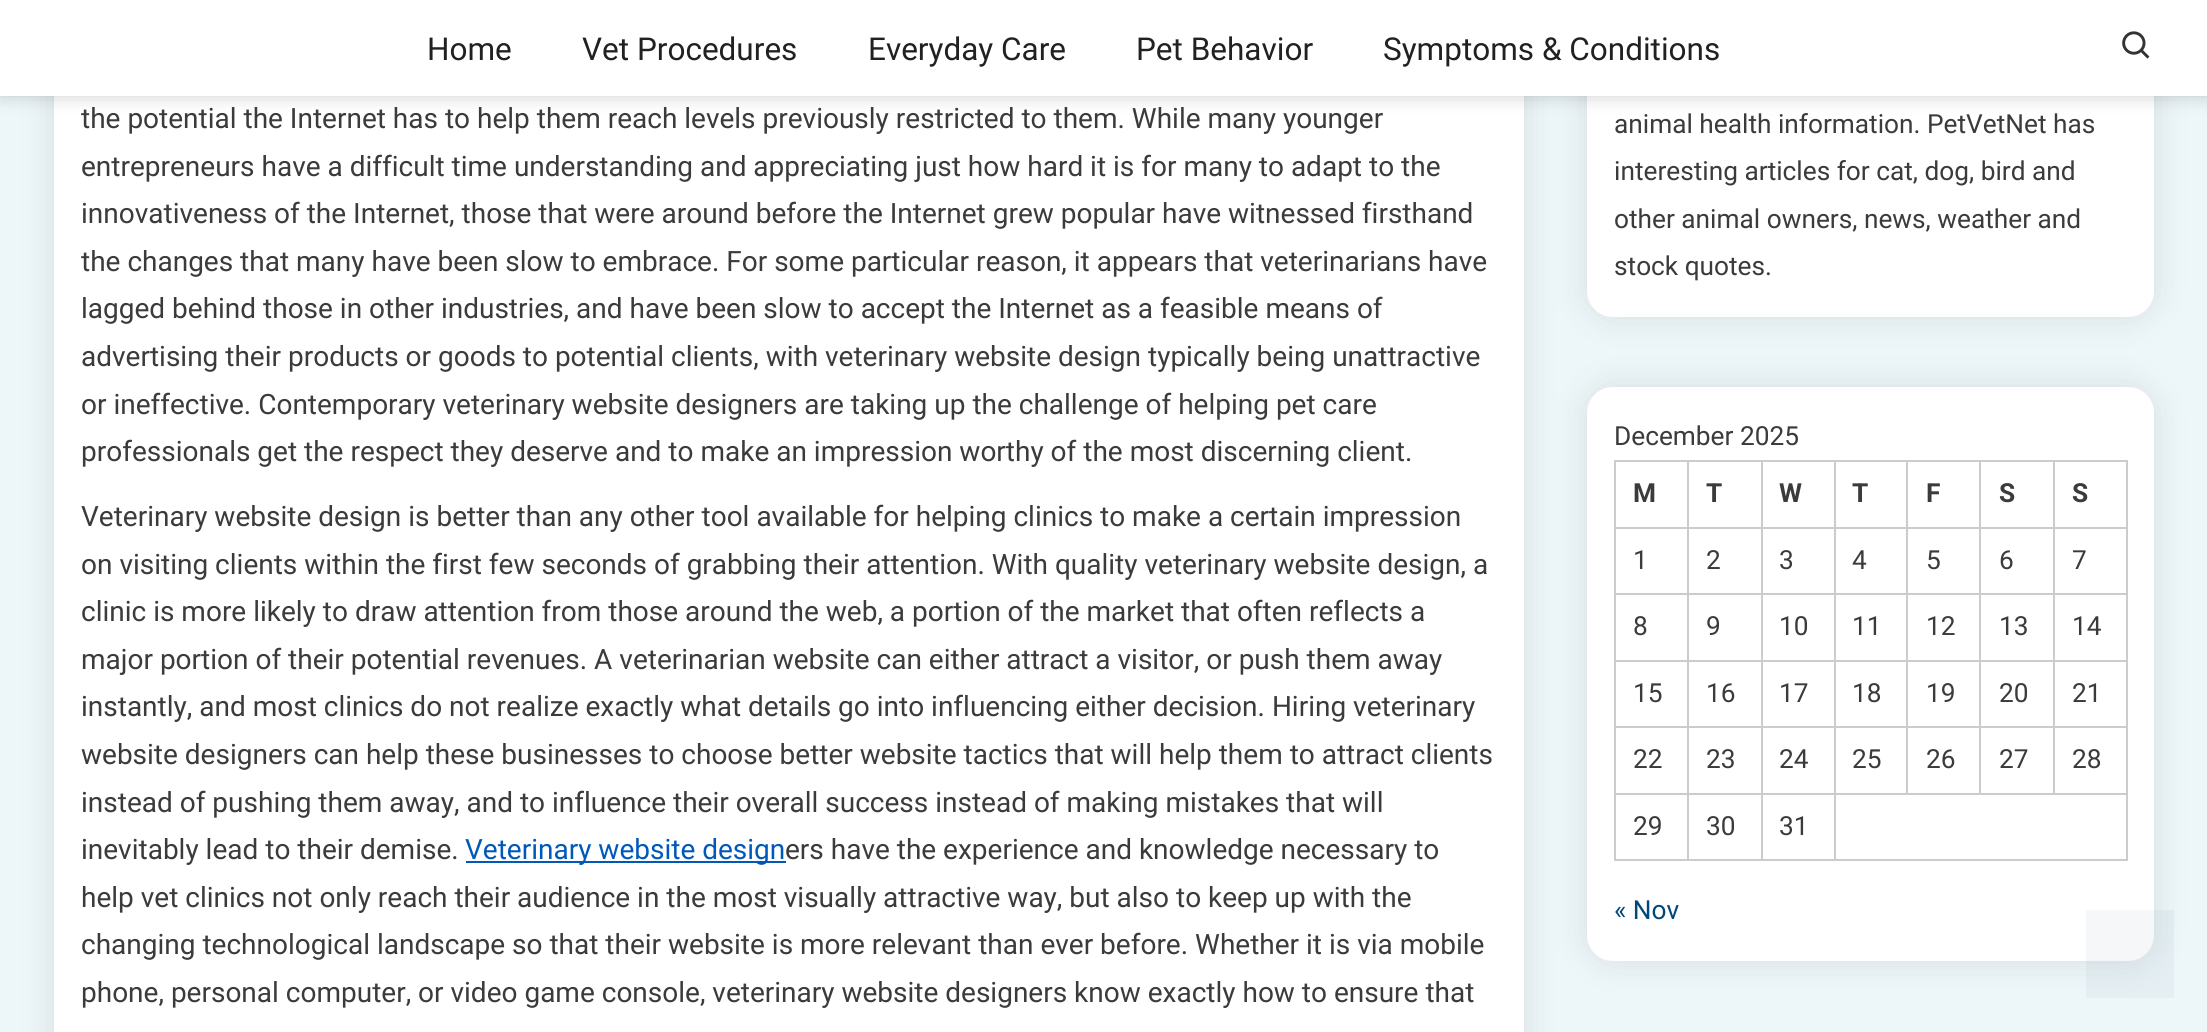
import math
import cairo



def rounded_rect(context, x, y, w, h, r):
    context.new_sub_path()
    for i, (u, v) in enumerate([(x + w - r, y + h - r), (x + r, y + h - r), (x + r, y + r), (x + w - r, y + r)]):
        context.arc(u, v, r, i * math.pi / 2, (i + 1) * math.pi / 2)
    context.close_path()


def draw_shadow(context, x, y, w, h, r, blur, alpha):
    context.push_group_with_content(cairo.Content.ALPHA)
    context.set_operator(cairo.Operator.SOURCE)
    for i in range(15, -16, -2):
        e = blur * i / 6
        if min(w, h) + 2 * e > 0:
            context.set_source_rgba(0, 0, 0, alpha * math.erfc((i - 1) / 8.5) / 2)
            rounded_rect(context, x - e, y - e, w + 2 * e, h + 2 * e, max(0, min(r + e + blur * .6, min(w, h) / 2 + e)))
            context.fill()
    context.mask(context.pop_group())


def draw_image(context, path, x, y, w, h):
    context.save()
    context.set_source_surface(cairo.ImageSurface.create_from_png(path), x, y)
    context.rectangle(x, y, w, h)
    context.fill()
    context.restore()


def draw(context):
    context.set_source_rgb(237 / 255, 246 / 255, 249 / 255)
    context.paint()
    context.set_source_rgb(0, 0, 0)
    draw_shadow(context, 54, -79, 1470, 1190, 26, 17.5, 0.1)
    context.set_source_rgb(1, 1, 1)
    context.rectangle(54, 96, 1470, 936)
    context.fill()
    context.set_source_rgb(0, 0, 0)
    draw_shadow(context, 1587, -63, 567, 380, 26, 17.5, 0.1)
    context.set_source_rgb(1, 1, 1)
    rounded_rect(context, 1587, -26, 567, 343, 26)
    context.fill()
    context.set_source_rgb(0, 0, 0)
    draw_shadow(context, 0, 0, 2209, 96, 0, 9, 0.2)
    context.set_source_rgb(1, 1, 1)
    context.rectangle(0, 0, 2207, 96)
    context.fill()
    draw_image(context, "images/1.png", 2122, 31, 28, 28)
    context.set_source_rgb(0, 89 / 255, 186 / 255)
    context.rectangle(466, 861, 320, 2)
    context.fill()
    context.set_source_rgb(0, 0, 0)
    draw_shadow(context, 1587, 387, 567, 574, 26, 17.5, 0.1)
    context.set_source_rgb(1, 1, 1)
    rounded_rect(context, 1587, 387, 567, 574, 26)
    context.fill()
    context.set_source_rgb(204 / 255, 204 / 255, 204 / 255)
    context.rectangle(2053, 460, 75, 2)
    context.fill()
    context.rectangle(2053, 527, 75, 2)
    context.fill()
    context.rectangle(2053, 593, 75, 2)
    context.fill()
    context.rectangle(2053, 660, 75, 2)
    context.fill()
    context.rectangle(2053, 726, 75, 2)
    context.fill()
    context.rectangle(1834, 793, 294, 2)
    context.fill()
    context.rectangle(2053, 726, 2, 69)
    context.fill()
    context.rectangle(1979, 726, 76, 2)
    context.fill()
    context.rectangle(2053, 660, 2, 68)
    context.fill()
    context.rectangle(1979, 660, 76, 2)
    context.fill()
    context.rectangle(2053, 593, 2, 69)
    context.fill()
    context.rectangle(1979, 593, 76, 2)
    context.fill()
    context.rectangle(2053, 527, 2, 68)
    context.fill()
    context.rectangle(1979, 527, 76, 2)
    context.fill()
    context.rectangle(2053, 460, 2, 69)
    context.fill()
    context.rectangle(1979, 460, 76, 2)
    context.fill()
    context.rectangle(1979, 726, 2, 69)
    context.fill()
    context.rectangle(1906, 726, 75, 2)
    context.fill()
    context.rectangle(1979, 660, 2, 68)
    context.fill()
    context.rectangle(1906, 660, 75, 2)
    context.fill()
    context.rectangle(1979, 593, 2, 69)
    context.fill()
    context.rectangle(1906, 593, 75, 2)
    context.fill()
    context.rectangle(1979, 527, 2, 68)
    context.fill()
    context.rectangle(1906, 527, 75, 2)
    context.fill()
    context.rectangle(1979, 460, 2, 69)
    context.fill()
    context.rectangle(1906, 460, 75, 2)
    context.fill()
    context.rectangle(1906, 726, 2, 69)
    context.fill()
    context.rectangle(1834, 726, 74, 2)
    context.fill()
    context.rectangle(1906, 660, 2, 68)
    context.fill()
    context.rectangle(1834, 660, 74, 2)
    context.fill()
    context.rectangle(1906, 593, 2, 69)
    context.fill()
    context.rectangle(1834, 593, 74, 2)
    context.fill()
    context.rectangle(1906, 527, 2, 68)
    context.fill()
    context.rectangle(1834, 527, 74, 2)
    context.fill()
    context.rectangle(1906, 460, 2, 69)
    context.fill()
    context.rectangle(1834, 460, 74, 2)
    context.fill()
    context.rectangle(2126, 793, 2, 68)
    context.fill()
    context.rectangle(1834, 859, 294, 2)
    context.fill()
    context.rectangle(1834, 793, 2, 68)
    context.fill()
    context.rectangle(1761, 793, 75, 2)
    context.fill()
    context.rectangle(1834, 726, 2, 69)
    context.fill()
    context.rectangle(1761, 726, 75, 2)
    context.fill()
    context.rectangle(1834, 660, 2, 68)
    context.fill()
    context.rectangle(1761, 660, 75, 2)
    context.fill()
    context.rectangle(1834, 593, 2, 69)
    context.fill()
    context.rectangle(1761, 593, 75, 2)
    context.fill()
    context.rectangle(1834, 527, 2, 68)
    context.fill()
    context.rectangle(1761, 527, 75, 2)
    context.fill()
    context.rectangle(1834, 460, 2, 69)
    context.fill()
    context.rectangle(1761, 460, 75, 2)
    context.fill()
    context.rectangle(1761, 859, 75, 2)
    context.fill()
    context.rectangle(1761, 793, 2, 68)
    context.fill()
    context.rectangle(1687, 793, 75, 2)
    context.fill()
    context.rectangle(1761, 726, 2, 69)
    context.fill()
    context.rectangle(1687, 726, 75, 2)
    context.fill()
    context.rectangle(1761, 660, 2, 68)
    context.fill()
    context.rectangle(1687, 660, 75, 2)
    context.fill()
    context.rectangle(1761, 593, 2, 69)
    context.fill()
    context.rectangle(1687, 593, 75, 2)
    context.fill()
    context.rectangle(1761, 527, 2, 68)
    context.fill()
    context.rectangle(1687, 527, 75, 2)
    context.fill()
    context.rectangle(1761, 460, 2, 69)
    context.fill()
    context.rectangle(1687, 460, 75, 2)
    context.fill()
    context.rectangle(1687, 859, 75, 2)
    context.fill()
    context.rectangle(1687, 793, 2, 68)
    context.fill()
    context.rectangle(1614, 793, 75, 2)
    context.fill()
    context.rectangle(1687, 726, 2, 69)
    context.fill()
    context.rectangle(1614, 726, 75, 2)
    context.fill()
    context.rectangle(1687, 660, 2, 68)
    context.fill()
    context.rectangle(1614, 660, 75, 2)
    context.fill()
    context.rectangle(1687, 593, 2, 69)
    context.fill()
    context.rectangle(1614, 593, 75, 2)
    context.fill()
    context.rectangle(1687, 527, 2, 68)
    context.fill()
    context.rectangle(1614, 527, 75, 2)
    context.fill()
    context.rectangle(1687, 460, 2, 69)
    context.fill()
    context.rectangle(1614, 460, 75, 2)
    context.fill()
    context.rectangle(1614, 859, 75, 2)
    context.fill()
    context.rectangle(1614, 793, 2, 68)
    context.fill()
    context.rectangle(1614, 726, 2, 69)
    context.fill()
    context.rectangle(1614, 660, 2, 68)
    context.fill()
    context.rectangle(1614, 593, 2, 69)
    context.fill()
    context.rectangle(1614, 527, 2, 68)
    context.fill()
    context.rectangle(1614, 460, 2, 69)
    context.fill()
    context.rectangle(2126, 726, 2, 69)
    context.fill()
    context.rectangle(2126, 660, 2, 68)
    context.fill()
    context.rectangle(2126, 593, 2, 69)
    context.fill()
    context.rectangle(2126, 527, 2, 68)
    context.fill()
    context.rectangle(2126, 460, 2, 69)
    context.fill()
    context.set_source_rgba(0, 71 / 255, 122 / 255, 0.04)
    context.rectangle(2086, 910, 88, 88)
    context.fill()
    context.select_font_face("Roboto")
    context.set_font_size(31.5)
    context.set_source_rgb(33 / 255, 33 / 255, 33 / 255)
    context.move_to(427, 60)
    context.show_text("Home")
    context.move_to(582, 60)
    context.show_text("Vet Procedures")
    context.move_to(868, 60)
    context.show_text("Everyday Care")
    context.move_to(1136, 60)
    context.show_text("Pet Behavior")
    context.move_to(1383, 60)
    context.show_text("Symptoms & Conditions")
    context.set_font_size(28)
    context.set_source_rgb(59 / 255, 59 / 255, 59 / 255)
    context.move_to(81, 128)
    context.show_text("the potential the Internet has to help them reach levels previously restricted to them. While many younger")
    context.move_to(81, 176)
    context.show_text("entrepreneurs have a difficult time understanding and appreciating just how hard it is for many to adapt to the")
    context.move_to(81, 223)
    context.show_text("innovativeness of the Internet, those that were around before the Internet grew popular have witnessed firsthand")
    context.move_to(81, 271)
    context.show_text("the changes that many have been slow to embrace. For some particular reason, it appears that veterinarians have")
    context.move_to(81, 318)
    context.show_text("lagged behind those in other industries, and have been slow to accept the Internet as a feasible means of")
    context.move_to(81, 366)
    context.show_text("advertising their products or goods to potential clients, with veterinary website design typically being unattractive")
    context.move_to(81, 414)
    context.show_text("or ineffective. Contemporary veterinary website designers are taking up the challenge of helping pet care")
    context.move_to(81, 461)
    context.show_text("professionals get the respect they deserve and to make an impression worthy of the most discerning client.")
    context.move_to(81, 526)
    context.show_text("Veterinary website design is better than any other tool available for helping clinics to make a certain impression")
    context.move_to(81, 574)
    context.show_text("on visiting clients within the first few seconds of grabbing their attention. With quality veterinary website design, a")
    context.move_to(81, 621)
    context.show_text("clinic is more likely to draw attention from those around the web, a portion of the market that often reflects a")
    context.move_to(81, 669)
    context.show_text("major portion of their potential revenues. A veterinarian website can either attract a visitor, or push them away")
    context.move_to(81, 716)
    context.show_text("instantly, and most clinics do not realize exactly what details go into influencing either decision. Hiring veterinary")
    context.move_to(81, 764)
    context.show_text("website designers can help these businesses to choose better website tactics that will help them to attract clients")
    context.move_to(81, 812)
    context.show_text("instead of pushing them away, and to influence their overall success instead of making mistakes that will")
    context.move_to(81, 859)
    context.show_text("inevitably lead to their demise.")
    context.set_source_rgb(0, 89 / 255, 186 / 255)
    context.move_to(465, 859)
    context.show_text("Veterinary website design")
    context.set_source_rgb(59 / 255, 59 / 255, 59 / 255)
    context.move_to(785, 859)
    context.show_text("ers have the experience and knowledge necessary to")
    context.move_to(81, 907)
    context.show_text("help vet clinics not only reach their audience in the most visually attractive way, but also to keep up with the")
    context.move_to(81, 954)
    context.show_text("changing technological landscape so that their website is more relevant than ever before. Whether it is via mobile")
    context.move_to(81, 1002)
    context.show_text("phone, personal computer, or video game console, veterinary website designers know exactly how to ensure that")
    context.set_font_size(26.25)
    context.move_to(1614, 133)
    context.show_text("animal health information. PetVetNet has")
    context.move_to(1614, 180)
    context.show_text("interesting articles for cat, dog, bird and")
    context.move_to(1614, 228)
    context.show_text("other animal owners, news, weather and")
    context.move_to(1614, 275)
    context.show_text("stock quotes.")
    context.move_to(1614, 445)
    context.show_text("December 2025")
    context.select_font_face("Roboto", cairo.FontSlant.NORMAL, cairo.FontWeight.BOLD)
    context.move_to(1633, 502)
    context.show_text("M")
    context.move_to(1706, 502)
    context.show_text("T")
    context.move_to(1779, 502)
    context.show_text("W")
    context.move_to(1852, 502)
    context.show_text("T")
    context.move_to(1926, 502)
    context.show_text("F")
    context.move_to(1999, 502)
    context.show_text("S")
    context.move_to(2072, 502)
    context.show_text("S")
    context.select_font_face("Roboto")
    context.move_to(1633, 569)
    context.show_text("1")
    context.move_to(1706, 569)
    context.show_text("2")
    context.move_to(1779, 569)
    context.show_text("3")
    context.move_to(1852, 569)
    context.show_text("4")
    context.move_to(1926, 569)
    context.show_text("5")
    context.move_to(1999, 569)
    context.show_text("6")
    context.move_to(2072, 569)
    context.show_text("7")
    context.move_to(1633, 635)
    context.show_text("8")
    context.move_to(1706, 635)
    context.show_text("9")
    context.move_to(1779, 635)
    context.show_text("10")
    context.move_to(1852, 635)
    context.show_text("11")
    context.move_to(1926, 635)
    context.show_text("12")
    context.move_to(1999, 635)
    context.show_text("13")
    context.move_to(2072, 635)
    context.show_text("14")
    context.move_to(1633, 702)
    context.show_text("15")
    context.move_to(1706, 702)
    context.show_text("16")
    context.move_to(1779, 702)
    context.show_text("17")
    context.move_to(1852, 702)
    context.show_text("18")
    context.move_to(1926, 702)
    context.show_text("19")
    context.move_to(1999, 702)
    context.show_text("20")
    context.move_to(2072, 702)
    context.show_text("21")
    context.move_to(1633, 768)
    context.show_text("22")
    context.move_to(1706, 768)
    context.show_text("23")
    context.move_to(1779, 768)
    context.show_text("24")
    context.move_to(1852, 768)
    context.show_text("25")
    context.move_to(1926, 768)
    context.show_text("26")
    context.move_to(1999, 768)
    context.show_text("27")
    context.move_to(2072, 768)
    context.show_text("28")
    context.move_to(1633, 835)
    context.show_text("29")
    context.move_to(1706, 835)
    context.show_text("30")
    context.move_to(1779, 835)
    context.show_text("31")
    context.set_source_rgb(0, 71 / 255, 122 / 255)
    context.move_to(1614, 919)
    context.show_text("« Nov")


surface = cairo.ImageSurface(cairo.Format.RGB24, 2207, 1032)
context = cairo.Context(surface)
options = cairo.FontOptions()
options.set_hint_metrics(cairo.HintMetrics.OFF)
options.set_hint_style(cairo.HintStyle.NONE)
context.set_font_options(options)
context.set_miter_limit(4)
draw(context)
surface.write_to_png("out.png")
